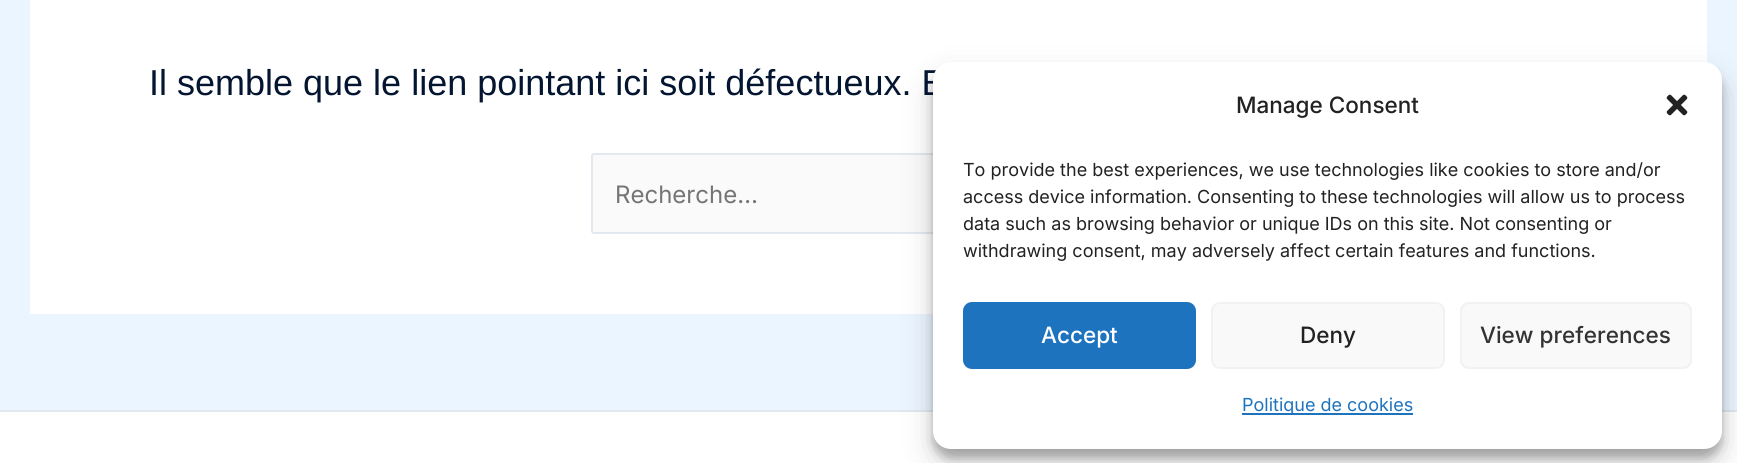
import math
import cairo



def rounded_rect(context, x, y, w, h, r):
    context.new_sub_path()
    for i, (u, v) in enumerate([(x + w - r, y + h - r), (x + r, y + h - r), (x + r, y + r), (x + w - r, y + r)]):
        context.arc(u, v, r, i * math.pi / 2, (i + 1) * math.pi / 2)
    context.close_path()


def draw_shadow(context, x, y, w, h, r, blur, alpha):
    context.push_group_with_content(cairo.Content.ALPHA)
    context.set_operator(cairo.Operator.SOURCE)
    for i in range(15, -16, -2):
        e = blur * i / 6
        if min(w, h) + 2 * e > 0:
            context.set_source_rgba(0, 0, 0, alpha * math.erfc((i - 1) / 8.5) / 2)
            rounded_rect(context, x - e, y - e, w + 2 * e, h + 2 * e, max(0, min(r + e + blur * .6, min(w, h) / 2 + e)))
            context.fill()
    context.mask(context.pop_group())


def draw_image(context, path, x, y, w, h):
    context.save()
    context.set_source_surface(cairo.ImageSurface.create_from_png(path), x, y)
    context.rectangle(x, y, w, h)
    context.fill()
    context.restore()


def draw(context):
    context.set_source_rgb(235 / 255, 245 / 255, 1)
    context.paint()
    context.set_source_rgb(1, 1, 1)
    context.rectangle(30, 0, 1677, 314)
    context.fill()
    context.set_source_rgb(250 / 255, 250 / 255, 250 / 255)
    rounded_rect(context, 592, 154, 553, 79, 2)
    context.fill_preserve()
    context.set_source_rgb(226 / 255, 232 / 255, 240 / 255)
    context.stroke()
    context.set_source_rgb(1, 1, 1)
    context.rectangle(0, 412, 1737, 51)
    context.fill()
    context.set_source_rgb(226 / 255, 232 / 255, 240 / 255)
    context.rectangle(0, 410, 1737, 2)
    context.fill()
    context.set_source_rgb(0, 0, 0)
    draw_shadow(context, 933, 71, 789, 387, 18, 4.5, 0.23)
    draw_shadow(context, 933, 77, 789, 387, 18, 15, 0.19)
    context.select_font_face("Liberation Sans")
    context.set_font_size(36)
    context.set_source_rgb(3 / 255, 21 / 255, 48 / 255)
    context.move_to(149, 95)
    context.show_text("Il semble que le lien pointant ici soit défectueux. E")
    context.select_font_face("Inter")
    context.set_font_size(24)
    context.set_source_rgb(117 / 255, 117 / 255, 117 / 255)
    context.move_to(615, 203)
    context.show_text("Recherche…")
    context.set_source_rgb(1, 1, 1)
    rounded_rect(context, 933, 62, 789, 387, 18)
    context.fill()
    context.select_font_face("Inter Medium")
    context.set_font_size(22.5)
    context.set_source_rgb(34 / 255, 34 / 255, 34 / 255)
    context.move_to(1236, 113)
    context.show_text("Manage Consent")
    draw_image(context, "images/1.png", 1666, 94, 22, 22)
    context.select_font_face("Inter")
    context.set_font_size(18)
    context.move_to(963, 176)
    context.show_text("To provide the best experiences, we use technologies like cookies to store and/or")
    context.move_to(963, 203)
    context.show_text("access device information. Consenting to these technologies will allow us to process")
    context.move_to(963, 230)
    context.show_text("data such as browsing behavior or unique IDs on this site. Not consenting or")
    context.move_to(963, 257)
    context.show_text("withdrawing consent, may adversely affect certain features and functions.")
    context.set_source_rgb(30 / 255, 115 / 255, 190 / 255)
    rounded_rect(context, 964, 303, 231, 65, 8)
    context.fill_preserve()
    context.stroke()
    context.select_font_face("Inter Medium")
    context.set_font_size(22.5)
    context.set_source_rgb(1, 1, 1)
    context.move_to(1041, 343)
    context.show_text("Accept")
    context.set_source_rgb(249 / 255, 249 / 255, 249 / 255)
    rounded_rect(context, 1212, 303, 232, 65, 8)
    context.fill_preserve()
    context.set_source_rgb(242 / 255, 242 / 255, 242 / 255)
    context.stroke()
    context.set_source_rgb(34 / 255, 34 / 255, 34 / 255)
    context.move_to(1300, 343)
    context.show_text("Deny")
    context.set_source_rgb(249 / 255, 249 / 255, 249 / 255)
    rounded_rect(context, 1461, 303, 230, 65, 8)
    context.fill_preserve()
    context.set_source_rgb(242 / 255, 242 / 255, 242 / 255)
    context.stroke()
    context.set_source_rgb(51 / 255, 51 / 255, 51 / 255)
    context.move_to(1480, 343)
    context.show_text("View preferences")
    context.set_source_rgb(30 / 255, 115 / 255, 190 / 255)
    context.rectangle(1242, 413, 171, 2)
    context.fill()
    context.select_font_face("Inter")
    context.set_font_size(18)
    context.move_to(1242, 411)
    context.show_text("Politique de cookies")


surface = cairo.ImageSurface(cairo.Format.RGB24, 1737, 463)
context = cairo.Context(surface)
options = cairo.FontOptions()
options.set_hint_metrics(cairo.HintMetrics.OFF)
options.set_hint_style(cairo.HintStyle.NONE)
context.set_font_options(options)
context.set_miter_limit(4)
draw(context)
surface.write_to_png("out.png")
